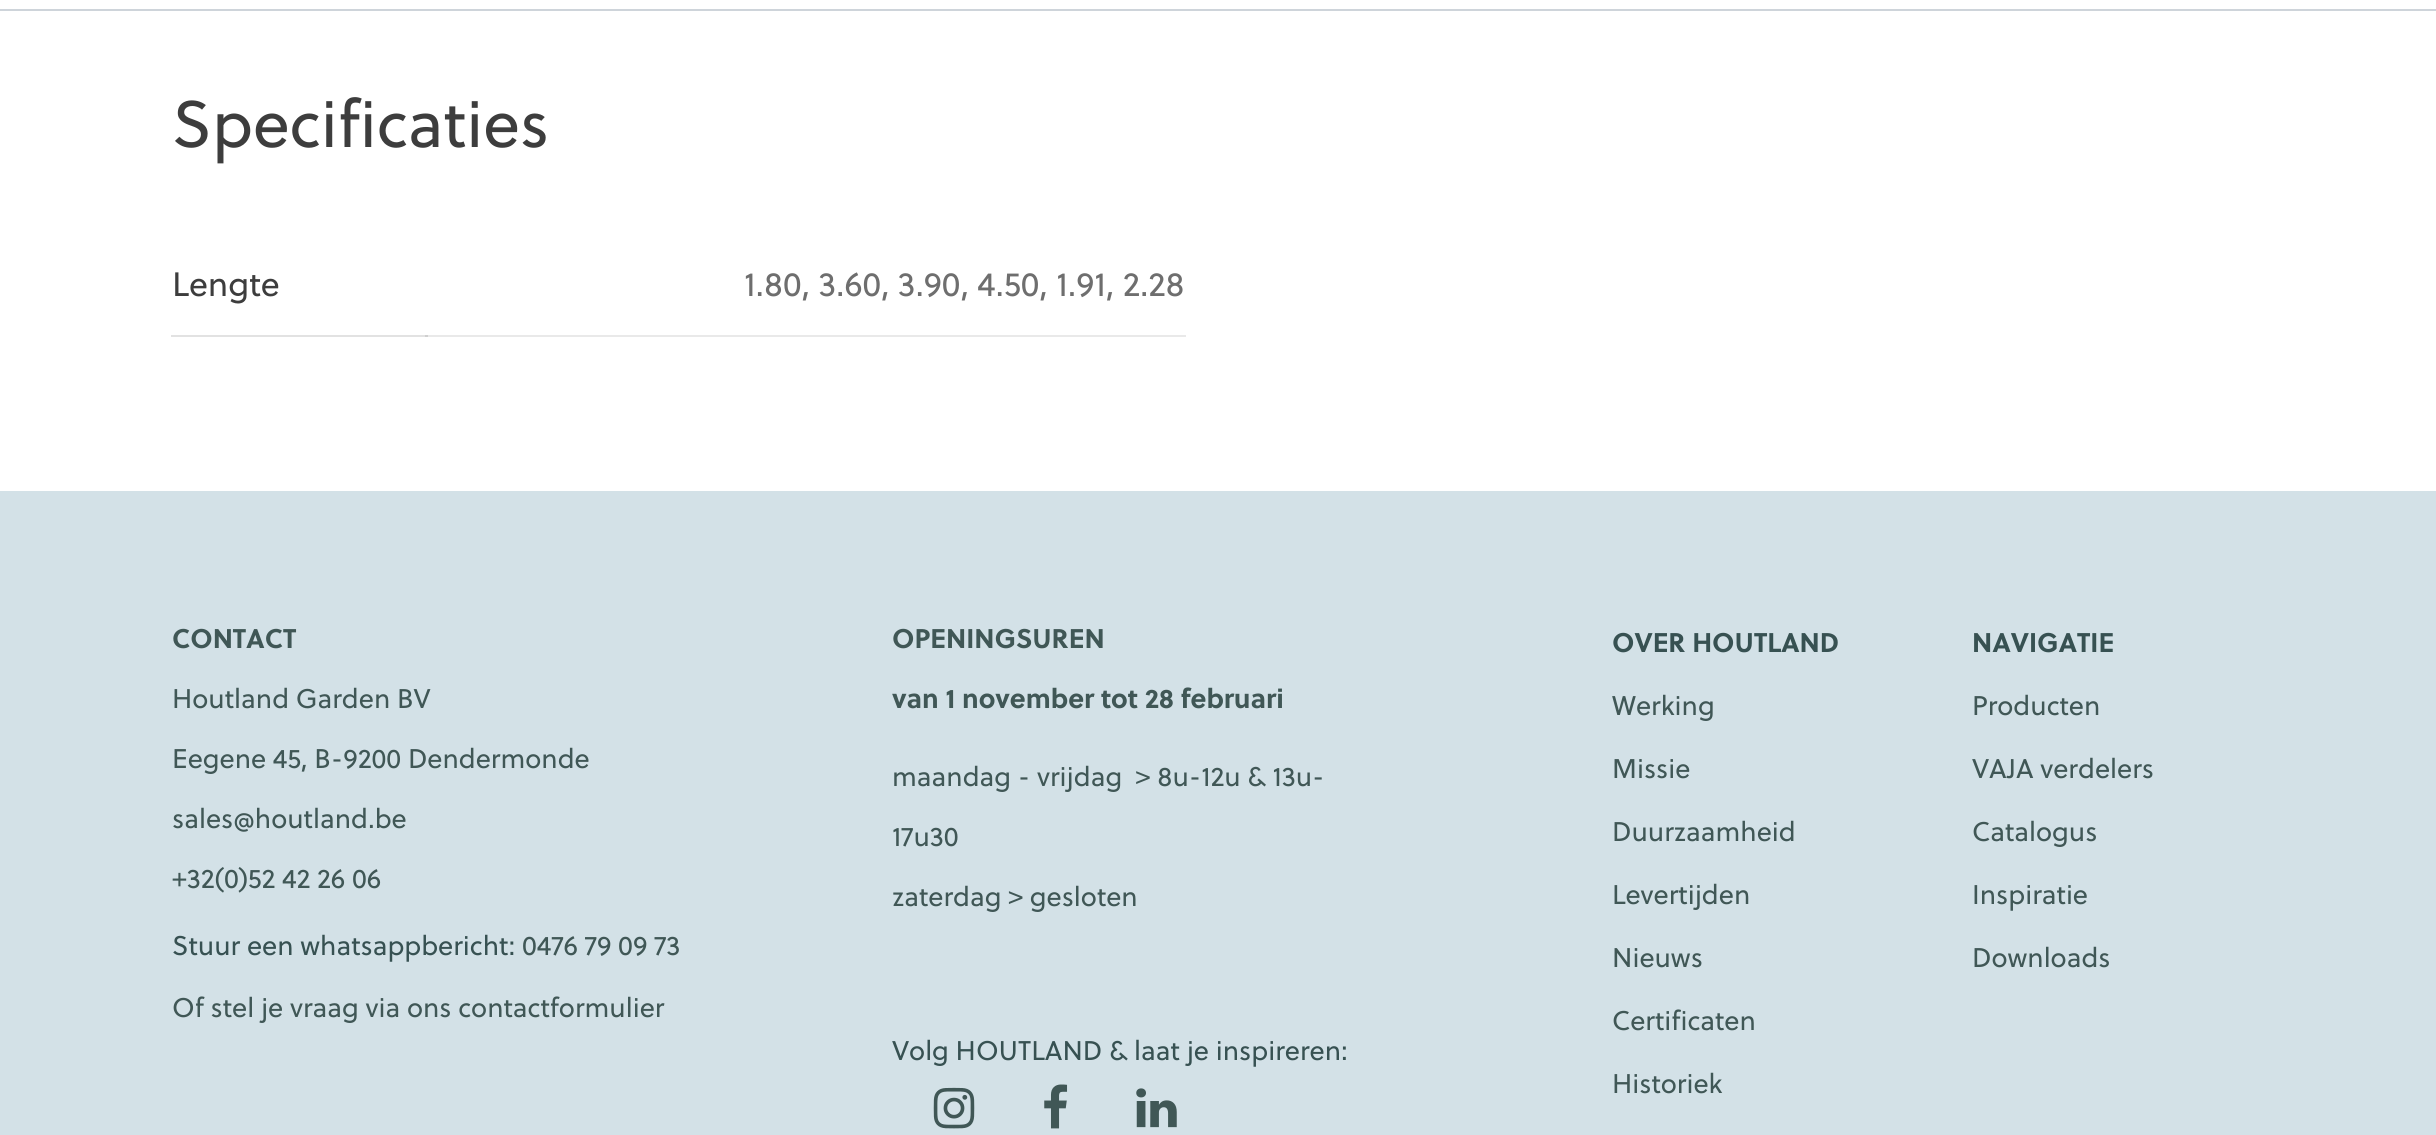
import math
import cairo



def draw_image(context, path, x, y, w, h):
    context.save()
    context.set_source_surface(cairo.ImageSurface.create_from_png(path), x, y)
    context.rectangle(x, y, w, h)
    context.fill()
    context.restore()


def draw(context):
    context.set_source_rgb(1, 1, 1)
    context.paint()
    context.set_source_rgb(226 / 255, 226 / 255, 226 / 255)
    context.rectangle(171, 335, 257, 2)
    context.fill()
    context.set_source_rgb(206 / 255, 212 / 255, 218 / 255)
    context.rectangle(0, 9, 2436, 2)
    context.fill()
    context.set_source_rgb(233 / 255, 233 / 255, 233 / 255)
    context.rectangle(425, 335, 761, 2)
    context.fill()
    context.set_source_rgb(207 / 255, 207 / 255, 207 / 255)
    context.rectangle(425, 335, 3, 2)
    context.fill()
    context.set_source_rgb(211 / 255, 225 / 255, 231 / 255)
    context.rectangle(0, 491, 2436, 644)
    context.fill()
    draw_image(context, "images/1.png", 933, 1087, 42, 42)
    draw_image(context, "images/2.png", 1044, 1084, 24, 45)
    draw_image(context, "images/3.png", 1136, 1088, 41, 40)
    context.select_font_face("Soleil")
    context.set_font_size(65.5)
    context.set_source_rgb(61 / 255, 61 / 255, 61 / 255)
    context.move_to(172, 147)
    context.show_text("Specificaties")
    context.set_font_size(33.75)
    context.move_to(172, 296)
    context.show_text("Lengte")
    context.set_source_rgb(110 / 255, 110 / 255, 110 / 255)
    context.move_to(744, 296)
    context.show_text("1.80, 3.60, 3.90, 4.50, 1.91, 2.28")
    context.select_font_face("Soleil", cairo.FontSlant.NORMAL, cairo.FontWeight.BOLD)
    context.set_font_size(27)
    context.set_source_rgb(64 / 255, 87 / 255, 86 / 255)
    context.move_to(172, 648)
    context.show_text("CONTACT")
    context.select_font_face("Soleil")
    context.move_to(172, 708)
    context.show_text("Houtland Garden BV")
    context.move_to(172, 768)
    context.show_text("Eegene 45, B-9200 Dendermonde")
    context.move_to(172, 828)
    context.show_text("sales@houtland.be")
    context.move_to(172, 888)
    context.show_text("+32(0)52 42 26 06")
    context.set_source_rgb(55 / 255, 81 / 255, 82 / 255)
    context.move_to(172, 955)
    context.show_text("Stuur een whatsappbericht:")
    context.set_source_rgb(64 / 255, 87 / 255, 86 / 255)
    context.move_to(522, 955)
    context.show_text("0476 79 09 73")
    context.move_to(172, 1017)
    context.show_text("Of stel je vraag via ons contactformulier")
    context.select_font_face("Soleil", cairo.FontSlant.NORMAL, cairo.FontWeight.BOLD)
    context.move_to(892, 648)
    context.show_text("OPENINGSUREN")
    context.move_to(892, 708)
    context.show_text("van 1 november tot 28 februari")
    context.select_font_face("Soleil")
    context.move_to(892, 786)
    context.show_text("maandag - vrijdag  > 8u-12u & 13u-")
    context.move_to(892, 846)
    context.show_text("17u30")
    context.move_to(892, 906)
    context.show_text("zaterdag > gesloten")
    context.set_source_rgb(55 / 255, 81 / 255, 82 / 255)
    context.move_to(892, 1060)
    context.show_text("Volg HOUTLAND & laat je inspireren:")
    context.select_font_face("Soleil", cairo.FontSlant.NORMAL, cairo.FontWeight.BOLD)
    context.move_to(1612, 652)
    context.show_text("OVER HOUTLAND")
    context.select_font_face("Soleil")
    context.set_source_rgb(64 / 255, 87 / 255, 86 / 255)
    context.move_to(1612, 715)
    context.show_text("Werking")
    context.move_to(1612, 778)
    context.show_text("Missie")
    context.move_to(1612, 841)
    context.show_text("Duurzaamheid")
    context.move_to(1612, 904)
    context.show_text("Levertijden")
    context.move_to(1612, 967)
    context.show_text("Nieuws")
    context.move_to(1612, 1030)
    context.show_text("Certificaten")
    context.move_to(1612, 1093)
    context.show_text("Historiek")
    context.select_font_face("Soleil", cairo.FontSlant.NORMAL, cairo.FontWeight.BOLD)
    context.set_source_rgb(55 / 255, 81 / 255, 82 / 255)
    context.move_to(1972, 652)
    context.show_text("NAVIGATIE")
    context.select_font_face("Soleil")
    context.set_source_rgb(64 / 255, 87 / 255, 86 / 255)
    context.move_to(1972, 715)
    context.show_text("Producten")
    context.move_to(1972, 778)
    context.show_text("VAJA verdelers")
    context.move_to(1972, 841)
    context.show_text("Catalogus")
    context.move_to(1972, 904)
    context.show_text("Inspiratie")
    context.move_to(1972, 967)
    context.show_text("Downloads")


surface = cairo.ImageSurface(cairo.Format.RGB24, 2436, 1135)
context = cairo.Context(surface)
options = cairo.FontOptions()
options.set_hint_metrics(cairo.HintMetrics.OFF)
options.set_hint_style(cairo.HintStyle.NONE)
context.set_font_options(options)
context.set_miter_limit(4)
draw(context)
surface.write_to_png("out.png")
